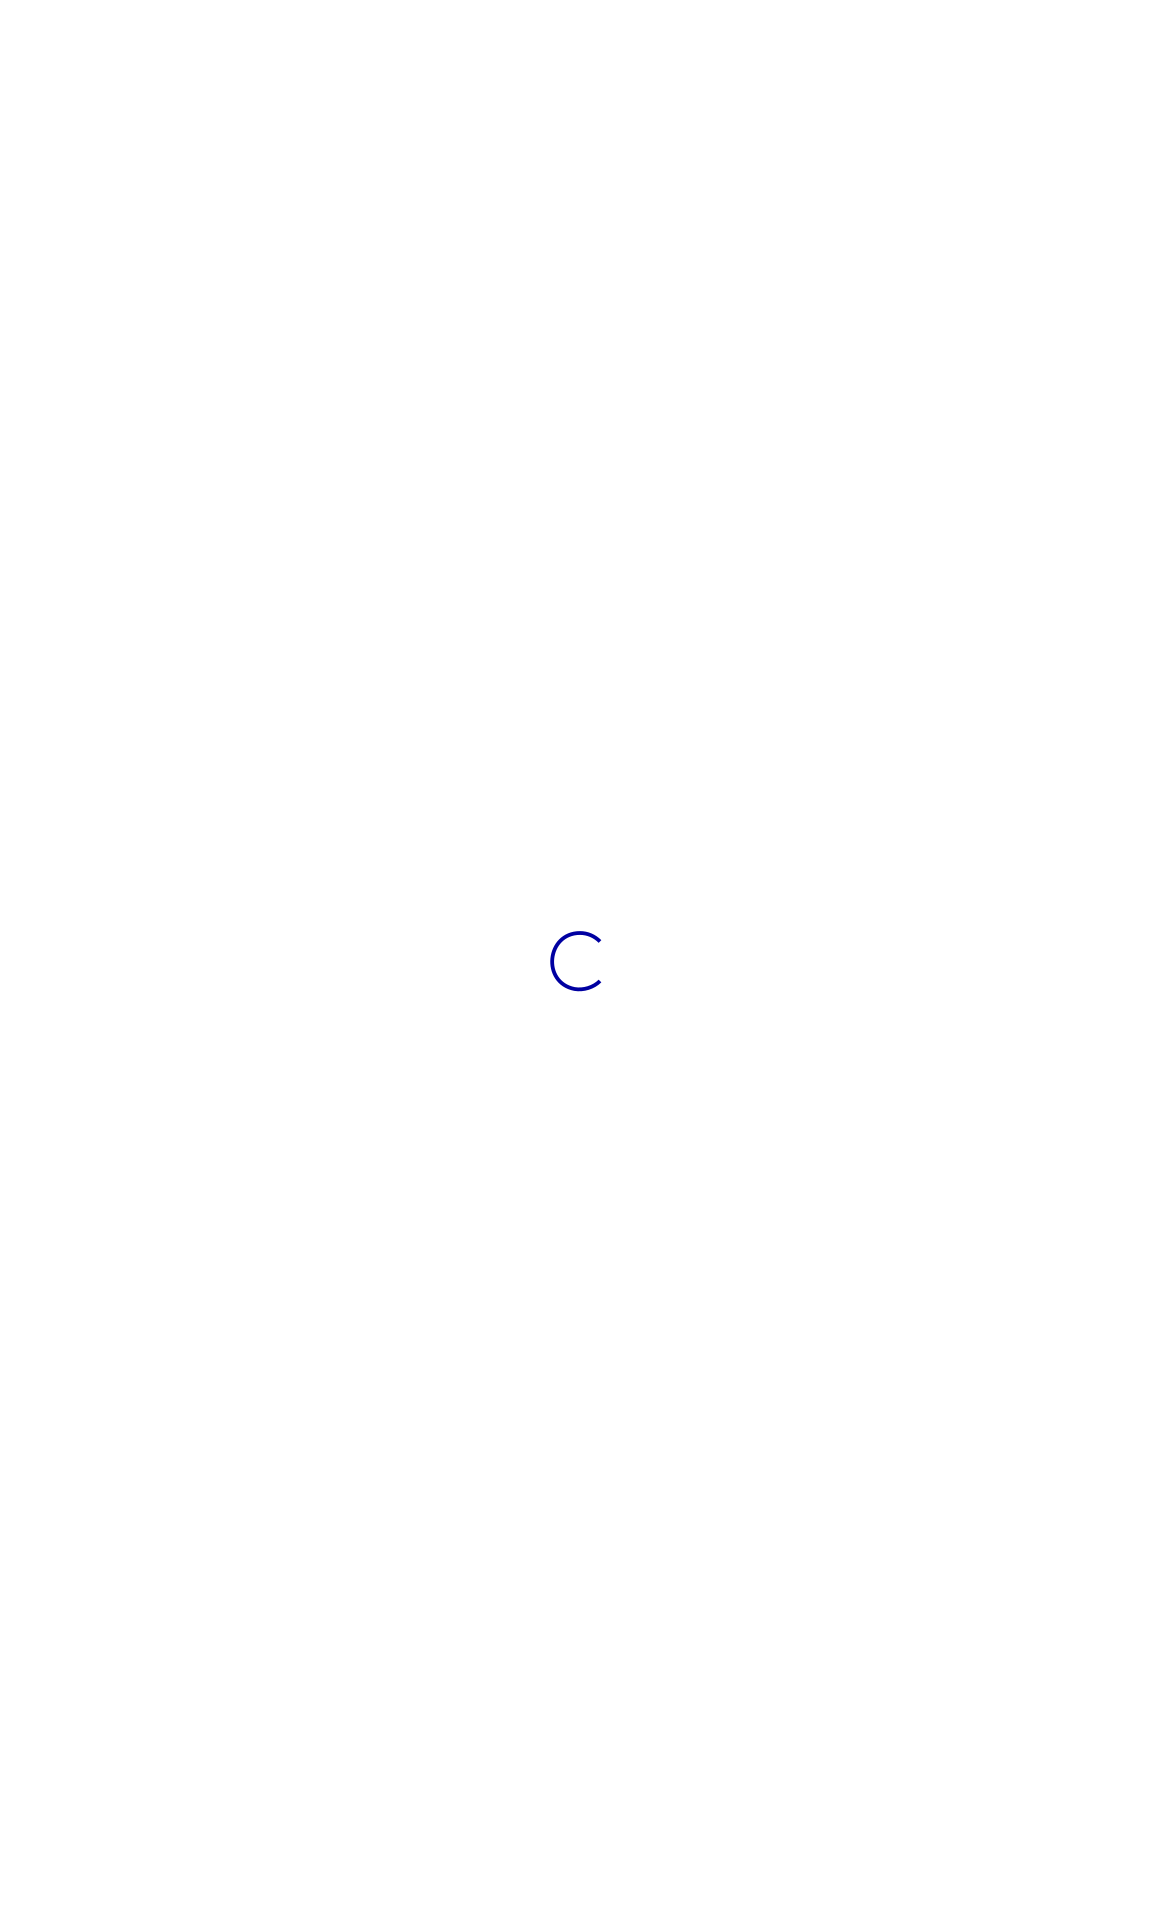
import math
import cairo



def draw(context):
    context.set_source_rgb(1, 1, 1)
    context.paint()
    context.new_path()
    context.move_to(600, 981)
    context.curve_to(593.5, 987.5, 583.5, 990.5, 574.5, 989)
    context.curve_to(541.5, 982.5, 546.5, 933, 580, 933)
    context.curve_to(587.5, 933, 594.5, 936, 600, 941.5)
    context.set_source_rgb(0, 0, 161 / 255)
    context.set_line_width(3.8)
    context.stroke()


surface = cairo.ImageSurface(cairo.Format.RGB24, 1160, 1921)
context = cairo.Context(surface)
options = cairo.FontOptions()
options.set_hint_metrics(cairo.HintMetrics.OFF)
options.set_hint_style(cairo.HintStyle.NONE)
context.set_font_options(options)
context.set_miter_limit(4)
draw(context)
surface.write_to_png("out.png")
